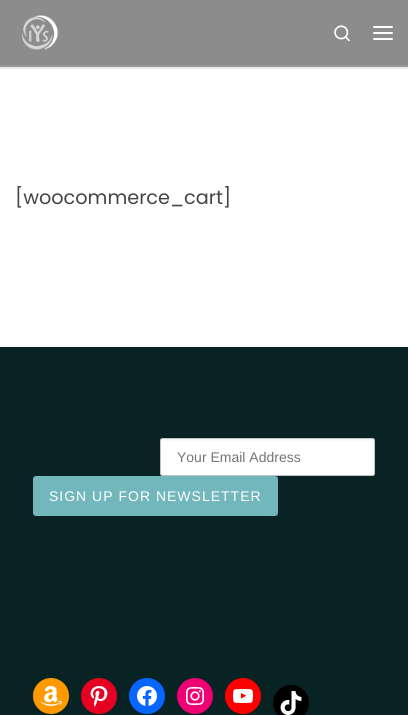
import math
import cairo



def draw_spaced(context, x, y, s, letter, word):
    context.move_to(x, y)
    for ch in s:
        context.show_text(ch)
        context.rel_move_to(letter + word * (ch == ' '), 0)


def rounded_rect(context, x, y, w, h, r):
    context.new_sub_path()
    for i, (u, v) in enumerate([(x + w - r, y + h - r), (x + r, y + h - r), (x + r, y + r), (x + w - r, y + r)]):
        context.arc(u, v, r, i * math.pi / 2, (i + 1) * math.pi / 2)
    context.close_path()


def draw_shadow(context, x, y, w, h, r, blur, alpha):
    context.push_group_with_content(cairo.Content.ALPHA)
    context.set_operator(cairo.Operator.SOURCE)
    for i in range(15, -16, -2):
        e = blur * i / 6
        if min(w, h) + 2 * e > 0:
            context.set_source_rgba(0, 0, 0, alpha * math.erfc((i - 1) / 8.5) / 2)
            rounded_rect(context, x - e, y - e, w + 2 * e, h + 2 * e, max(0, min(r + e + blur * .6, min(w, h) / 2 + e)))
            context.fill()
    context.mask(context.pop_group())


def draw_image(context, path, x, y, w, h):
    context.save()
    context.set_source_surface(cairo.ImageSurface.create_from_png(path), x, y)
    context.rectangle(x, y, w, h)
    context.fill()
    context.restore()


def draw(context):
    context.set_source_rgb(1, 1, 1)
    context.paint()
    context.set_source_rgb(102 / 255, 102 / 255, 102 / 255)
    draw_shadow(context, 0, 2, 408, 67, 0, 1, 0.08)
    context.set_source_rgb(140 / 255, 140 / 255, 140 / 255)
    context.rectangle(0, 0, 408, 65)
    context.fill()
    context.set_source_rgb(166 / 255, 166 / 255, 166 / 255)
    context.rectangle(0, 66, 408, 1)
    context.fill()
    context.save()
    context.rectangle(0, 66, 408, 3)
    context.clip()
    context.set_source_rgb(0, 0, 0)
    draw_shadow(context, 0, 0, 408, 66, 0, 2.5, 0.2)
    context.restore()
    draw_image(context, "images/1.png", 21, 15, 38, 35)
    draw_image(context, "images/2.png", 334, 25, 16, 17)
    context.set_source_rgb(252 / 255, 252 / 255, 252 / 255)
    rounded_rect(context, 373, 26, 20, 2, 1)
    context.fill()
    rounded_rect(context, 373, 32, 20, 2, 1)
    context.fill()
    rounded_rect(context, 373, 38, 20, 2, 1)
    context.fill()
    context.set_source_rgb(148 / 255, 148 / 255, 148 / 255)
    context.rectangle(0, 65, 408, 1)
    context.fill()
    context.set_source_rgb(9 / 255, 34 / 255, 35 / 255)
    context.rectangle(0, 347, 408, 368)
    context.fill()
    context.set_source_rgb(1, 1, 1)
    rounded_rect(context, 160, 438, 215, 38, 3)
    context.fill()
    context.set_source_rgb(249 / 255, 249 / 255, 249 / 255)
    context.new_path()
    context.move_to(163, 441)
    context.line_to(372, 441)
    context.curve_to(373, 441, 374, 442, 374, 443)
    context.line_to(374, 441)
    context.curve_to(374, 440, 373, 439, 372, 439)
    context.line_to(163, 439)
    context.curve_to(162, 439, 161, 440, 161, 441)
    context.line_to(161, 443)
    context.curve_to(161, 442, 162, 441, 163, 441)
    context.close_path()
    context.fill()
    rounded_rect(context, 160.5, 438.5, 214, 37, 2.5)
    context.set_source_rgb(190 / 255, 195 / 255, 200 / 255)
    context.set_line_width(1)
    context.stroke()
    context.set_source_rgb(113 / 255, 183 / 255, 188 / 255)
    rounded_rect(context, 33, 476, 245, 40, 3)
    context.fill()
    context.set_source_rgb(1, 153 / 255, 0)
    context.arc(51, 696, 18, 0, 2 * math.pi)
    context.fill()
    draw_image(context, "images/3.png", 40, 686, 22, 20)
    context.set_source_rgb(230 / 255, 1 / 255, 34 / 255)
    context.arc(99, 696, 18, 0, 2 * math.pi)
    context.fill()
    draw_image(context, "images/4.png", 90, 686, 18, 21)
    context.set_source_rgb(8 / 255, 102 / 255, 1)
    context.arc(147, 696, 18, 0, 2 * math.pi)
    context.fill()
    draw_image(context, "images/5.png", 137, 686, 20, 20)
    context.set_source_rgb(240 / 255, 0, 117 / 255)
    context.arc(195, 696, 18, 0, 2 * math.pi)
    context.fill()
    draw_image(context, "images/6.png", 186, 687, 18, 18)
    context.set_source_rgb(1, 0, 0)
    context.arc(243, 696, 18, 0, 2 * math.pi)
    context.fill()
    draw_image(context, "images/7.png", 233, 689, 20, 14)
    context.set_source_rgb(0, 0, 0)
    context.arc(291, 703, 18, 0, 2 * math.pi)
    context.fill()
    draw_image(context, "images/8.png", 280, 691, 22, 24)
    context.select_font_face("Poppins")
    context.set_font_size(19.25)
    context.set_source_rgb(68 / 255, 68 / 255, 68 / 255)
    context.move_to(15, 204)
    context.show_text("[woocommerce_cart]")
    context.select_font_face("Liberation Sans")
    context.set_font_size(14)
    context.set_source_rgb(117 / 255, 117 / 255, 117 / 255)
    context.move_to(177, 462)
    context.show_text("Your Email Address")
    context.set_source_rgb(1, 1, 1)
    draw_spaced(context, 49, 501, "SIGN UP FOR NEWSLETTER", 1, 0)


surface = cairo.ImageSurface(cairo.Format.RGB24, 408, 715)
context = cairo.Context(surface)
options = cairo.FontOptions()
options.set_hint_metrics(cairo.HintMetrics.OFF)
options.set_hint_style(cairo.HintStyle.NONE)
context.set_font_options(options)
context.set_miter_limit(4)
draw(context)
surface.write_to_png("out.png")
